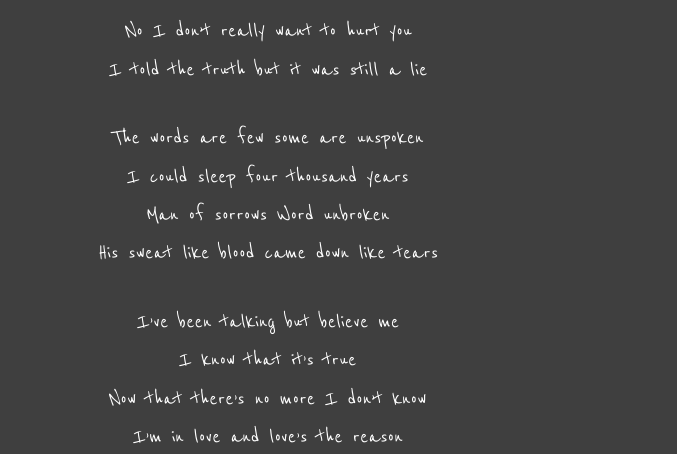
import math
import cairo



def draw(context):
    context.set_source_rgb(63 / 255, 63 / 255, 63 / 255)
    context.paint()
    context.select_font_face("Reenie Beanie Medium")
    context.set_font_size(24)
    context.set_source_rgb(1, 1, 1)
    context.move_to(125, 37)
    context.show_text("No I don’t really want to hurt you")
    context.move_to(109, 76)
    context.show_text("I told the truth but it was still a lie")
    context.move_to(112, 144)
    context.show_text("The words are few some are unspoken")
    context.move_to(127, 183)
    context.show_text("I could sleep four thousand years")
    context.move_to(146, 221)
    context.show_text("Man of sorrows Word unbroken")
    context.move_to(98, 259)
    context.show_text("His sweat like blood came down like tears")
    context.move_to(137, 328)
    context.show_text("I’ve been talking but believe me")
    context.move_to(179, 366)
    context.show_text("I know that it’s true")
    context.move_to(109, 405)
    context.show_text("Now that there’s no more I don’t know")
    context.move_to(133, 443)
    context.show_text("I’m in love and love’s the reason")


surface = cairo.ImageSurface(cairo.Format.RGB24, 677, 454)
context = cairo.Context(surface)
options = cairo.FontOptions()
options.set_hint_metrics(cairo.HintMetrics.OFF)
options.set_hint_style(cairo.HintStyle.NONE)
context.set_font_options(options)
context.set_miter_limit(4)
draw(context)
surface.write_to_png("out.png")
